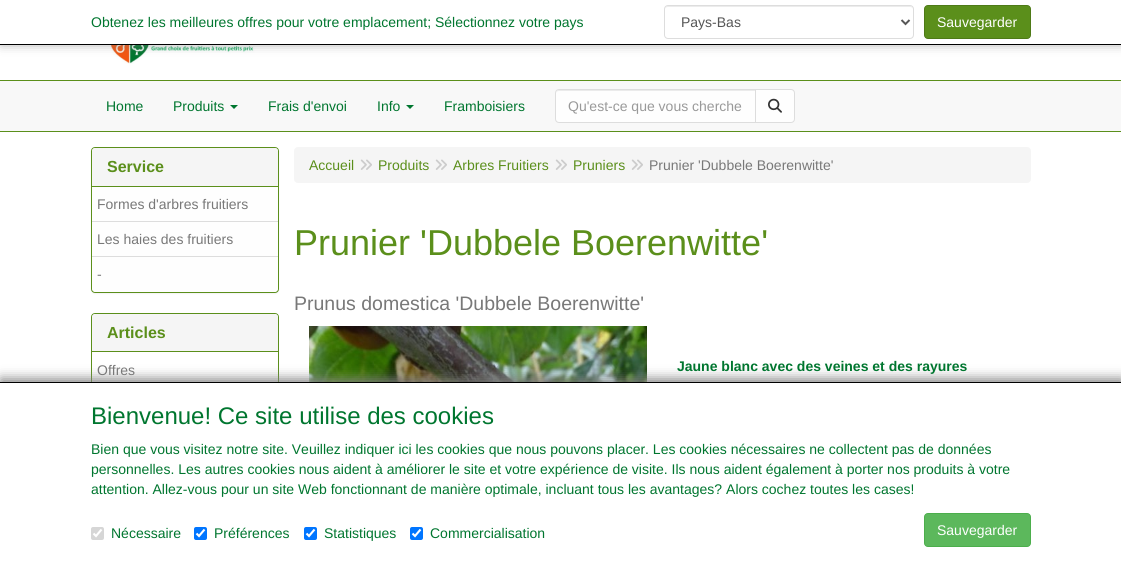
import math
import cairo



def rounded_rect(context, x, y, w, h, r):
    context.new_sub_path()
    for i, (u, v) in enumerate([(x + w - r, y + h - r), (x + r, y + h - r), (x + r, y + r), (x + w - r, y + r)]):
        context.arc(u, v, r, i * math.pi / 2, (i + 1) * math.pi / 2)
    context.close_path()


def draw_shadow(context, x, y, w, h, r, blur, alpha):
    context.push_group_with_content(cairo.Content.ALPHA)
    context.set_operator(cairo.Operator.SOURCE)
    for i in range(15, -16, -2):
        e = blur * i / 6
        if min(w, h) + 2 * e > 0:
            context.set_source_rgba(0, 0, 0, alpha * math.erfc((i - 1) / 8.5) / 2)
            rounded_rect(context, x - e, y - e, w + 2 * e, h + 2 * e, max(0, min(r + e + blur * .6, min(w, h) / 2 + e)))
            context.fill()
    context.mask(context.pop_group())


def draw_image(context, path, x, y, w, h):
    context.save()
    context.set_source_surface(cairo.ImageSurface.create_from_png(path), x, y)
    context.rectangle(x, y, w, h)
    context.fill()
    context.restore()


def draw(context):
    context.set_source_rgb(1, 1, 1)
    context.paint()
    draw_image(context, "images/1.png", 110, 45, 155, 19)
    context.set_source_rgb(128 / 255, 128 / 255, 128 / 255)
    draw_shadow(context, 1, -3, 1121, 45, 0, 6, 1)
    context.set_source_rgb(1, 1, 1)
    context.rectangle(0, 0, 1121, 44)
    context.fill()
    context.set_source_rgb(0, 0, 0)
    context.rectangle(0, 44, 1121, 1)
    context.fill()
    context.set_source_rgb(236 / 255, 236 / 255, 236 / 255)
    context.new_path()
    context.move_to(668, 7)
    context.line_to(910, 7)
    context.curve_to(912, 7, 913, 8, 913, 10)
    context.curve_to(913, 8, 912, 6, 910, 6)
    context.line_to(668, 6)
    context.curve_to(666, 6, 665, 8, 665, 10)
    context.curve_to(665, 8, 666, 7, 668, 7)
    context.close_path()
    context.fill()
    rounded_rect(context, 664.5, 5.5, 249, 33, 3.5)
    context.set_source_rgb(221 / 255, 221 / 255, 221 / 255)
    context.set_line_width(1)
    context.stroke()
    context.new_path()
    context.move_to(901.5, 20)
    context.line_to(905.5, 24)
    context.line_to(909.5, 20)
    context.set_source_rgb(86 / 255, 86 / 255, 86 / 255)
    context.set_line_width(2)
    context.stroke()
    context.set_source_rgb(91 / 255, 143 / 255, 27 / 255)
    rounded_rect(context, 924.5, 5.5, 106, 33, 3.5)
    context.fill_preserve()
    context.set_source_rgb(78 / 255, 122 / 255, 23 / 255)
    context.set_line_width(1)
    context.stroke()
    context.set_source_rgb(248 / 255, 248 / 255, 248 / 255)
    context.rectangle(0, 81, 1121, 50)
    context.fill()
    context.set_source_rgb(91 / 255, 143 / 255, 27 / 255)
    context.rectangle(0, 80, 1121, 1)
    context.fill()
    context.rectangle(0, 131, 1121, 1)
    context.fill()
    context.set_source_rgb(0, 118 / 255, 47 / 255)
    context.new_path()
    context.move_to(230, 105)
    context.line_to(238, 105)
    context.line_to(234, 109)
    context.close_path()
    context.fill()
    context.new_path()
    context.move_to(406, 105)
    context.line_to(414, 105)
    context.line_to(410, 109)
    context.close_path()
    context.fill()
    context.set_source_rgb(254 / 255, 254 / 255, 254 / 255)
    context.new_path()
    context.move_to(559, 89)
    context.line_to(756, 89)
    context.line_to(756, 123)
    context.line_to(559, 123)
    context.curve_to(557, 123, 555, 121, 555, 119)
    context.line_to(555, 93)
    context.curve_to(555, 91, 557, 89, 559, 89)
    context.close_path()
    context.fill()
    context.set_source_rgb(235 / 255, 235 / 255, 235 / 255)
    context.new_path()
    context.move_to(559, 91)
    context.line_to(755, 91)
    context.line_to(755, 90)
    context.line_to(559, 90)
    context.curve_to(557, 90, 556, 92, 556, 94)
    context.curve_to(556, 92, 557, 91, 559, 91)
    context.close_path()
    context.fill()
    context.new_path()
    context.move_to(559, 89.5)
    context.line_to(755.5, 89.5)
    context.line_to(755.5, 122.5)
    context.line_to(559, 122.5)
    context.curve_to(557, 122.5, 555.5, 121, 555.5, 119)
    context.line_to(555.5, 93)
    context.curve_to(555.5, 91, 557, 89.5, 559, 89.5)
    context.close_path()
    context.set_source_rgb(221 / 255, 221 / 255, 221 / 255)
    context.stroke()
    context.set_source_rgb(254 / 255, 254 / 255, 254 / 255)
    context.new_path()
    context.move_to(755.5, 89.5)
    context.line_to(791, 89.5)
    context.curve_to(793, 89.5, 794.5, 91, 794.5, 93)
    context.line_to(794.5, 119)
    context.curve_to(794.5, 121, 793, 122.5, 791, 122.5)
    context.line_to(755.5, 122.5)
    context.close_path()
    context.fill_preserve()
    context.set_source_rgb(221 / 255, 221 / 255, 221 / 255)
    context.stroke()
    draw_image(context, "images/2.png", 768, 98, 14, 15)
    context.set_source_rgb(0, 0, 0)
    draw_shadow(context, 91, 148, 188, 146, 4, 0.5, 0.05)
    context.set_source_rgb(254 / 255, 254 / 255, 254 / 255)
    rounded_rect(context, 91.5, 147.5, 187, 145, 3.5)
    context.fill_preserve()
    context.set_source_rgb(91 / 255, 143 / 255, 27 / 255)
    context.stroke()
    context.set_source_rgb(245 / 255, 245 / 255, 245 / 255)
    context.new_path()
    context.move_to(95, 148)
    context.line_to(275, 148)
    context.curve_to(276.5, 148, 278, 149.5, 278, 151)
    context.line_to(278, 187)
    context.line_to(92, 187)
    context.line_to(92, 151)
    context.curve_to(92, 149.5, 93.5, 148, 95, 148)
    context.close_path()
    context.fill()
    context.set_source_rgb(91 / 255, 143 / 255, 27 / 255)
    context.rectangle(92, 186, 186, 1)
    context.fill()
    context.set_source_rgb(221 / 255, 221 / 255, 221 / 255)
    context.rectangle(92, 221, 186, 1)
    context.fill()
    context.set_source_rgb(254 / 255, 254 / 255, 254 / 255)
    context.new_path()
    context.move_to(92, 256)
    context.line_to(278, 256)
    context.line_to(278, 288)
    context.curve_to(278, 290, 276, 292, 274, 292)
    context.line_to(96, 292)
    context.curve_to(94, 292, 92, 290, 92, 288)
    context.close_path()
    context.fill()
    context.set_source_rgb(221 / 255, 221 / 255, 221 / 255)
    context.rectangle(92, 256, 186, 1)
    context.fill()
    rounded_rect(context, 91.5, 313.5, 187, 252, 3.5)
    context.set_source_rgb(91 / 255, 143 / 255, 27 / 255)
    context.stroke()
    context.set_source_rgb(245 / 255, 245 / 255, 245 / 255)
    context.new_path()
    context.move_to(95, 314)
    context.line_to(275, 314)
    context.curve_to(276.5, 314, 278, 315.5, 278, 317)
    context.line_to(278, 352)
    context.line_to(92, 352)
    context.line_to(92, 317)
    context.curve_to(92, 315.5, 93.5, 314, 95, 314)
    context.close_path()
    context.fill()
    context.set_source_rgb(91 / 255, 143 / 255, 27 / 255)
    context.rectangle(92, 351, 186, 1)
    context.fill()
    context.set_source_rgb(245 / 255, 245 / 255, 245 / 255)
    rounded_rect(context, 294, 147, 737, 36, 4)
    context.fill()
    draw_image(context, "images/3.png", 360, 159, 12, 11)
    draw_image(context, "images/3.png", 435, 159, 12, 11)
    draw_image(context, "images/3.png", 555, 159, 12, 11)
    draw_image(context, "images/3.png", 631, 159, 12, 11)
    draw_image(context, "images/4.png", 309, 326, 338, 56)
    context.set_source_rgb(128 / 255, 128 / 255, 128 / 255)
    draw_shadow(context, 1, 379, 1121, 179, 0, 6, 1)
    context.set_source_rgb(1, 1, 1)
    context.rectangle(0, 383, 1121, 178)
    context.fill()
    context.set_source_rgb(0, 0, 0)
    context.rectangle(0, 382, 1121, 1)
    context.fill()
    context.set_source_rgb(214 / 255, 214 / 255, 214 / 255)
    rounded_rect(context, 91, 527, 13, 13, 2)
    context.fill()
    context.new_path()
    context.move_to(93.5, 533.5)
    context.line_to(96, 536)
    context.line_to(101.5, 529.5)
    context.set_source_rgb(1, 1, 1)
    context.set_line_width(2.1)
    context.stroke()
    context.set_source_rgb(0, 117 / 255, 1)
    rounded_rect(context, 194, 527, 13, 13, 2)
    context.fill()
    context.new_path()
    context.move_to(196.5, 533.5)
    context.line_to(199, 536)
    context.line_to(204.5, 529.5)
    context.set_source_rgb(1, 1, 1)
    context.stroke()
    context.set_source_rgb(0, 117 / 255, 1)
    rounded_rect(context, 304, 527, 13, 13, 2)
    context.fill()
    context.new_path()
    context.move_to(306.5, 533.5)
    context.line_to(309, 536)
    context.line_to(314.5, 529.5)
    context.set_source_rgb(1, 1, 1)
    context.stroke()
    context.set_source_rgb(0, 117 / 255, 1)
    rounded_rect(context, 410, 527, 13, 13, 2)
    context.fill()
    context.new_path()
    context.move_to(412.5, 533.5)
    context.line_to(415, 536)
    context.line_to(420.5, 529.5)
    context.set_source_rgb(1, 1, 1)
    context.stroke()
    context.set_source_rgb(92 / 255, 184 / 255, 92 / 255)
    rounded_rect(context, 924.5, 513.5, 106, 33, 3.5)
    context.fill_preserve()
    context.set_source_rgb(76 / 255, 174 / 255, 76 / 255)
    context.set_line_width(1)
    context.stroke()
    context.select_font_face("Liberation Sans")
    context.set_font_size(14)
    context.set_source_rgb(0, 118 / 255, 47 / 255)
    context.move_to(91, 27)
    context.show_text("Obtenez les meilleures offres pour votre emplacement; Sélectionnez votre pays")
    context.set_source_rgb(86 / 255, 86 / 255, 86 / 255)
    context.move_to(681, 27)
    context.show_text("Pays-Bas")
    context.set_source_rgb(254 / 255, 254 / 255, 254 / 255)
    context.move_to(937, 27)
    context.show_text("Sauvegarder")
    context.set_source_rgb(0, 118 / 255, 47 / 255)
    context.move_to(106, 111)
    context.show_text("Home")
    context.move_to(173, 111)
    context.show_text("Produits")
    context.move_to(268, 111)
    context.show_text("Frais d'envoi")
    context.move_to(377, 111)
    context.show_text("Info")
    context.move_to(444, 111)
    context.show_text("Framboisiers")
    context.set_source_rgb(153 / 255, 153 / 255, 153 / 255)
    context.move_to(568, 111)
    context.show_text("Qu'est-ce que vous cherche")
    context.select_font_face("Liberation Sans", cairo.FontSlant.NORMAL, cairo.FontWeight.BOLD)
    context.set_font_size(16)
    context.set_source_rgb(91 / 255, 143 / 255, 27 / 255)
    context.move_to(107, 172)
    context.show_text("Service")
    context.select_font_face("Liberation Sans")
    context.set_font_size(14)
    context.set_source_rgb(120 / 255, 120 / 255, 120 / 255)
    context.move_to(97, 209)
    context.show_text("Formes d'arbres fruitiers")
    context.move_to(97, 244)
    context.show_text("Les haies des fruitiers")
    context.move_to(97, 279)
    context.show_text("-")
    context.select_font_face("Liberation Sans", cairo.FontSlant.NORMAL, cairo.FontWeight.BOLD)
    context.set_font_size(16)
    context.set_source_rgb(91 / 255, 143 / 255, 27 / 255)
    context.move_to(107, 338)
    context.show_text("Articles")
    context.select_font_face("Liberation Sans")
    context.set_font_size(14)
    context.set_source_rgb(120 / 255, 120 / 255, 120 / 255)
    context.move_to(97, 375)
    context.show_text("Offres")
    context.set_source_rgb(91 / 255, 143 / 255, 27 / 255)
    context.move_to(309, 170)
    context.show_text("Accueil")
    context.move_to(378, 170)
    context.show_text("Produits")
    context.move_to(453, 170)
    context.show_text("Arbres Fruitiers")
    context.move_to(573, 170)
    context.show_text("Pruniers")
    context.set_source_rgb(120 / 255, 120 / 255, 120 / 255)
    context.move_to(649, 170)
    context.show_text("Prunier 'Dubbele Boerenwitte'")
    context.set_font_size(36)
    context.set_source_rgb(91 / 255, 143 / 255, 27 / 255)
    context.move_to(294, 255)
    context.show_text("Prunier 'Dubbele Boerenwitte'")
    context.set_font_size(19.5)
    context.set_source_rgb(120 / 255, 120 / 255, 120 / 255)
    context.move_to(294, 310)
    context.show_text("Prunus domestica 'Dubbele Boerenwitte'")
    context.select_font_face("Liberation Sans", cairo.FontSlant.NORMAL, cairo.FontWeight.BOLD)
    context.set_font_size(14)
    context.set_source_rgb(0, 118 / 255, 47 / 255)
    context.move_to(677, 371)
    context.show_text("Jaune blanc avec des veines et des rayures")
    context.select_font_face("Liberation Sans")
    context.set_font_size(24)
    context.move_to(91, 424)
    context.show_text("Bienvenue! Ce site utilise des cookies")
    context.set_font_size(14)
    context.move_to(91, 454)
    context.show_text("Bien que vous visitez notre site. Veuillez indiquer ici les cookies que nous pouvons placer. Les cookies nécessaires ne collectent pas de données")
    context.move_to(91, 474)
    context.show_text("personnelles. Les autres cookies nous aident à améliorer le site et votre expérience de visite. Ils nous aident également à porter nos produits à votre")
    context.move_to(91, 494)
    context.show_text("attention. Allez-vous pour un site Web fonctionnant de manière optimale, incluant tous les avantages? Alors cochez toutes les cases!")
    context.move_to(111, 538)
    context.show_text("Nécessaire")
    context.move_to(214, 538)
    context.show_text("Préférences")
    context.move_to(324, 538)
    context.show_text("Statistiques")
    context.move_to(430, 538)
    context.show_text("Commercialisation")
    context.set_source_rgb(254 / 255, 254 / 255, 254 / 255)
    context.move_to(937, 535)
    context.show_text("Sauvegarder")


surface = cairo.ImageSurface(cairo.Format.RGB24, 1121, 561)
context = cairo.Context(surface)
options = cairo.FontOptions()
options.set_hint_metrics(cairo.HintMetrics.OFF)
options.set_hint_style(cairo.HintStyle.NONE)
context.set_font_options(options)
context.set_miter_limit(4)
draw(context)
surface.write_to_png("out.png")
